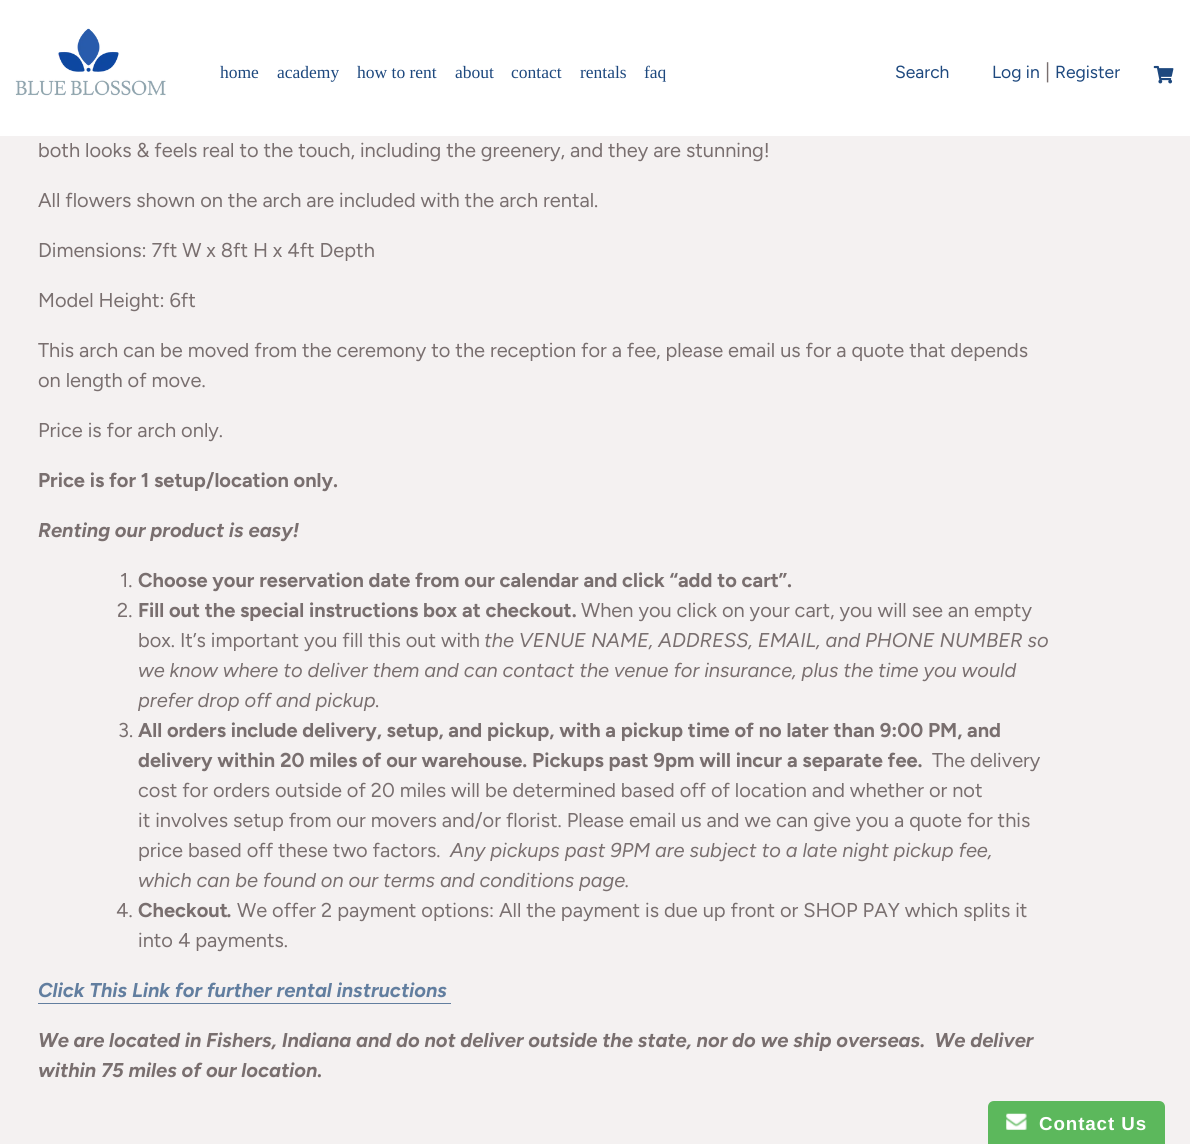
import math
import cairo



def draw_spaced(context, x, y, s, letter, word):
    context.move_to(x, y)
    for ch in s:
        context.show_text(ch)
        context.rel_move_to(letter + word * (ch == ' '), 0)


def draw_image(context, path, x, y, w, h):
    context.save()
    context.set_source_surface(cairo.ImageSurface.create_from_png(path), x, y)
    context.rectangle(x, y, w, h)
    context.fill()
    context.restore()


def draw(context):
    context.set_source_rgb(244 / 255, 241 / 255, 241 / 255)
    context.paint()
    context.set_source_rgb(1, 1, 1)
    context.rectangle(0, 0, 1190, 136)
    context.fill()
    draw_image(context, "images/1.png", 15, 28, 151, 68)
    draw_image(context, "images/2.png", 1153, 65, 21, 19)
    context.set_source_rgb(98 / 255, 126 / 255, 159 / 255)
    context.rectangle(38, 1003, 413, 1)
    context.fill()
    context.set_source_rgb(92 / 255, 184 / 255, 92 / 255)
    context.new_path()
    context.move_to(994, 1101)
    context.line_to(1159, 1101)
    context.curve_to(1162.5, 1101, 1165, 1103.5, 1165, 1107)
    context.line_to(1165, 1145)
    context.line_to(988, 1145)
    context.line_to(988, 1107)
    context.curve_to(988, 1103.5, 990.5, 1101, 994, 1101)
    context.close_path()
    context.fill()
    draw_image(context, "images/3.png", 1006, 1113, 21, 17)
    context.select_font_face("Liberation Serif")
    context.set_font_size(17.5)
    context.set_source_rgb(29 / 255, 72 / 255, 126 / 255)
    context.move_to(220, 78)
    context.show_text("home")
    context.move_to(277, 78)
    context.show_text("academy")
    context.move_to(357, 78)
    context.show_text("how to rent")
    context.move_to(455, 78)
    context.show_text("about")
    context.move_to(511, 78)
    context.show_text("contact")
    context.move_to(580, 78)
    context.show_text("rentals")
    context.move_to(644, 78)
    context.show_text("faq")
    context.select_font_face("Figtree")
    context.move_to(895, 78)
    context.show_text("Search")
    context.move_to(992, 78)
    context.show_text("Log in")
    context.set_font_size(20)
    context.set_source_rgb(121 / 255, 111 / 255, 111 / 255)
    context.move_to(1045, 78)
    context.show_text("|")
    context.set_font_size(17.5)
    context.set_source_rgb(29 / 255, 72 / 255, 126 / 255)
    context.move_to(1055, 78)
    context.show_text("Register")
    context.set_font_size(20)
    context.set_source_rgb(121 / 255, 111 / 255, 111 / 255)
    context.move_to(38, 157)
    context.show_text("both looks & feels real to the touch, including the greenery, and they are stunning!")
    context.move_to(38, 207)
    context.show_text("All flowers shown on the arch are included with the arch rental.")
    context.move_to(38, 257)
    context.show_text("Dimensions: 7ft W x 8ft H x 4ft Depth")
    context.move_to(38, 307)
    context.show_text("Model Height: 6ft")
    context.move_to(38, 357)
    context.show_text("This arch can be moved from the ceremony to the reception for a fee, please email us for a quote that depends")
    context.move_to(38, 387)
    context.show_text("on length of move.")
    context.move_to(38, 437)
    context.show_text("Price is for arch only.")
    context.select_font_face("Figtree", cairo.FontSlant.NORMAL, cairo.FontWeight.BOLD)
    context.move_to(38, 487)
    context.show_text("Price is for 1 setup/location only.")
    context.select_font_face("Figtree", cairo.FontSlant.ITALIC, cairo.FontWeight.BOLD)
    context.move_to(38, 537)
    context.show_text("Renting our product is easy!")
    context.select_font_face("Figtree")
    context.move_to(120, 587)
    context.show_text("1.")
    context.select_font_face("Figtree", cairo.FontSlant.NORMAL, cairo.FontWeight.BOLD)
    context.move_to(138, 587)
    context.show_text("Choose your reservation date from our calendar and click “add to cart”.")
    context.select_font_face("Figtree")
    context.move_to(117, 617)
    context.show_text("2.")
    context.select_font_face("Figtree", cairo.FontSlant.NORMAL, cairo.FontWeight.BOLD)
    context.move_to(138, 617)
    context.show_text("Fill out the special instructions box at checkout.")
    context.select_font_face("Figtree")
    context.move_to(581, 617)
    context.show_text("When you click on your cart, you will see an empty")
    context.move_to(138, 647)
    context.show_text("box. It’s important you fill this out with")
    context.select_font_face("Figtree", cairo.FontSlant.ITALIC)
    context.move_to(484, 647)
    context.show_text("the VENUE NAME, ADDRESS, EMAIL, and PHONE NUMBER so")
    context.move_to(138, 677)
    context.show_text("we know where to deliver them and can contact the venue for insurance, plus the time you would")
    context.move_to(138, 707)
    context.show_text("prefer drop off and pickup")
    context.select_font_face("Figtree")
    context.move_to(375, 707)
    context.show_text(".")
    context.move_to(118, 737)
    context.show_text("3.")
    context.select_font_face("Figtree", cairo.FontSlant.NORMAL, cairo.FontWeight.BOLD)
    context.move_to(138, 737)
    context.show_text("All orders include delivery, setup, and pickup, with a pickup time of no later than 9:00 PM, and")
    context.move_to(138, 767)
    context.show_text("delivery within 20 miles of our warehouse. Pickups past 9pm will incur a separate fee.")
    context.select_font_face("Figtree")
    context.move_to(932, 767)
    context.show_text("The delivery")
    context.move_to(138, 797)
    context.show_text("cost for orders outside of 20 miles will be determined based off of location and whether or not")
    context.move_to(138, 827)
    context.show_text("it involves setup from our movers and/or florist. Please email us and we can give you a quote for this")
    context.move_to(138, 857)
    context.show_text("price based off these two factors.")
    context.select_font_face("Figtree", cairo.FontSlant.ITALIC)
    context.move_to(450, 857)
    context.show_text("Any pickups past 9PM are subject to a late night pickup fee,")
    context.move_to(138, 887)
    context.show_text("which can be found on our terms and conditions page.")
    context.select_font_face("Figtree")
    context.move_to(116, 917)
    context.show_text("4.")
    context.select_font_face("Figtree", cairo.FontSlant.NORMAL, cairo.FontWeight.BOLD)
    context.move_to(138, 917)
    context.show_text("Checkout")
    context.select_font_face("Figtree", cairo.FontSlant.ITALIC, cairo.FontWeight.BOLD)
    context.move_to(227, 917)
    context.show_text(".")
    context.select_font_face("Figtree")
    context.move_to(237, 917)
    context.show_text("We offer 2 payment options: All the payment is due up front or SHOP PAY which splits it")
    context.move_to(138, 947)
    context.show_text("into 4 payments.")
    context.select_font_face("Figtree", cairo.FontSlant.ITALIC, cairo.FontWeight.BOLD)
    context.set_source_rgb(98 / 255, 126 / 255, 159 / 255)
    context.move_to(38, 997)
    context.show_text("Click This Link for further rental instructions")
    context.set_source_rgb(121 / 255, 111 / 255, 111 / 255)
    context.move_to(38, 1047)
    context.show_text("We are located in Fishers, Indiana and do not deliver outside the state, nor do we ship overseas.  We deliver")
    context.move_to(38, 1077)
    context.show_text("within 75 miles of our location.")
    context.select_font_face("Liberation Sans", cairo.FontSlant.NORMAL, cairo.FontWeight.BOLD)
    context.set_font_size(18.75)
    context.set_source_rgb(1, 1, 1)
    draw_spaced(context, 1039, 1130, "Contact Us", 0.9, 0)


surface = cairo.ImageSurface(cairo.Format.RGB24, 1190, 1144)
context = cairo.Context(surface)
options = cairo.FontOptions()
options.set_hint_metrics(cairo.HintMetrics.OFF)
options.set_hint_style(cairo.HintStyle.NONE)
context.set_font_options(options)
context.set_miter_limit(4)
draw(context)
surface.write_to_png("out.png")
